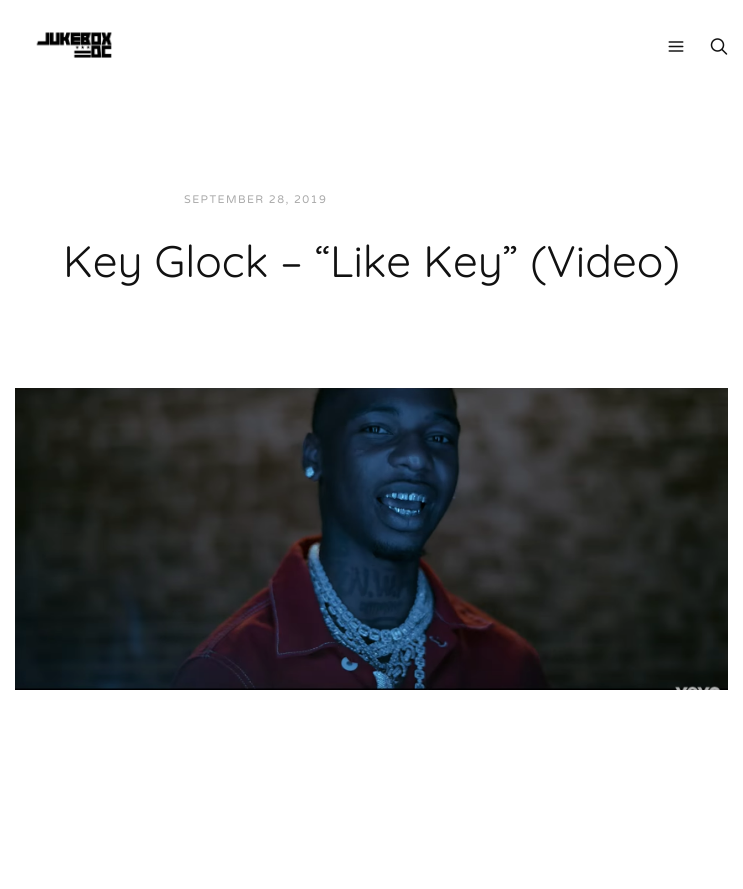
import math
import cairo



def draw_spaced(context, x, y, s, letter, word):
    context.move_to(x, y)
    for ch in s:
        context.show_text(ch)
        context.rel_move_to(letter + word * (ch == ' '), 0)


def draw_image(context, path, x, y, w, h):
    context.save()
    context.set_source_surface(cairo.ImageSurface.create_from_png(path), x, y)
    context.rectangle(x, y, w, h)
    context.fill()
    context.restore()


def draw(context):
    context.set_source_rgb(1, 1, 1)
    context.paint()
    draw_image(context, "images/1.png", 36, 32, 76, 26)
    draw_image(context, "images/2.png", 668, 41, 16, 11)
    draw_image(context, "images/3.png", 710, 38, 18, 17)
    draw_image(context, "images/4.png", 15, 388, 713, 302)
    context.select_font_face("Varela Round")
    context.set_font_size(11)
    context.set_source_rgb(170 / 255, 170 / 255, 170 / 255)
    draw_spaced(context, 184, 203, "SEPTEMBER 28, 2019", 1.4, 0)
    context.select_font_face("Quicksand Light")
    context.set_font_size(44)
    context.set_source_rgb(17 / 255, 17 / 255, 17 / 255)
    context.move_to(63, 277)
    context.show_text("Key Glock – “Like Key” (Video)")


surface = cairo.ImageSurface(cairo.Format.RGB24, 743, 889)
context = cairo.Context(surface)
options = cairo.FontOptions()
options.set_hint_metrics(cairo.HintMetrics.OFF)
options.set_hint_style(cairo.HintStyle.NONE)
context.set_font_options(options)
context.set_miter_limit(4)
draw(context)
surface.write_to_png("out.png")
